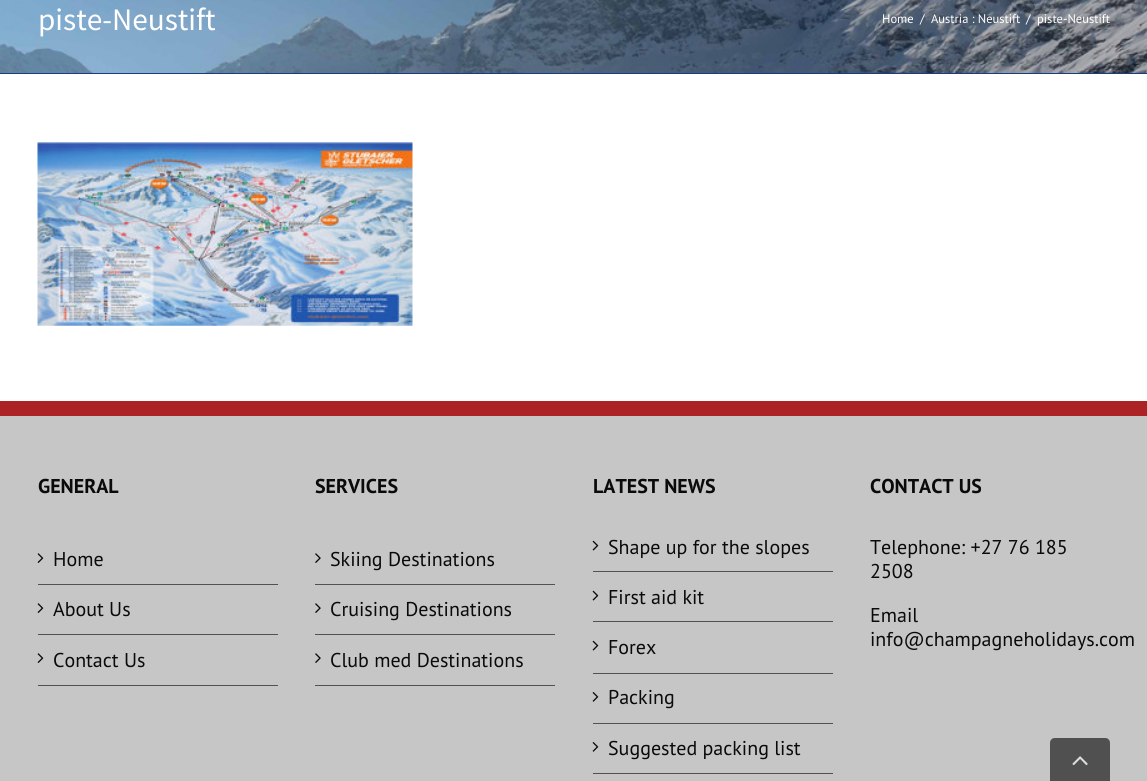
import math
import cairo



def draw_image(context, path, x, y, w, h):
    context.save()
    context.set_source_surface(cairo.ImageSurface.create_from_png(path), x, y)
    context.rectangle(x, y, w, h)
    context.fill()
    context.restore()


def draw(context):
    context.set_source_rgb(1, 1, 1)
    context.paint()
    draw_image(context, "images/1.png", 0, 0, 1147, 73)
    context.set_source_rgb(26 / 255, 60 / 255, 130 / 255)
    context.rectangle(0, 73, 1147, 1)
    context.fill()
    draw_image(context, "images/2.png", 37, 142, 376, 184)
    context.set_source_rgb(198 / 255, 198 / 255, 198 / 255)
    context.rectangle(0, 416, 1147, 365)
    context.fill()
    context.set_source_rgb(171 / 255, 35 / 255, 37 / 255)
    context.rectangle(0, 401, 1147, 15)
    context.fill()
    context.set_source_rgb(80 / 255, 81 / 255, 82 / 255)
    context.rectangle(38, 584, 240, 1)
    context.fill()
    draw_image(context, "images/3.png", 37, 553, 7, 10)
    context.rectangle(38, 634, 240, 1)
    context.fill()
    draw_image(context, "images/3.png", 37, 603, 7, 10)
    context.rectangle(38, 685, 240, 1)
    context.fill()
    draw_image(context, "images/3.png", 37, 653, 7, 10)
    context.rectangle(315, 584, 240, 1)
    context.fill()
    draw_image(context, "images/4.png", 315, 553, 6, 10)
    context.rectangle(315, 634, 240, 1)
    context.fill()
    draw_image(context, "images/4.png", 315, 603, 6, 10)
    context.rectangle(315, 685, 240, 1)
    context.fill()
    draw_image(context, "images/4.png", 315, 653, 6, 10)
    context.rectangle(593, 571, 240, 1)
    context.fill()
    draw_image(context, "images/5.png", 592, 540, 7, 11)
    context.rectangle(593, 621, 240, 1)
    context.fill()
    draw_image(context, "images/5.png", 592, 590, 7, 11)
    context.rectangle(593, 673, 240, 1)
    context.fill()
    draw_image(context, "images/5.png", 592, 640, 7, 11)
    context.rectangle(593, 723, 240, 1)
    context.fill()
    draw_image(context, "images/6.png", 592, 692, 7, 10)
    context.rectangle(593, 773, 240, 1)
    context.fill()
    draw_image(context, "images/6.png", 592, 742, 7, 10)
    context.set_source_rgb(80 / 255, 80 / 255, 80 / 255)
    context.new_path()
    context.move_to(1055, 738)
    context.line_to(1105, 738)
    context.curve_to(1108, 738, 1110, 740, 1110, 743)
    context.line_to(1110, 781)
    context.line_to(1050, 781)
    context.line_to(1050, 743)
    context.curve_to(1050, 740, 1052, 738, 1055, 738)
    context.close_path()
    context.fill()
    draw_image(context, "images/7.png", 1072, 756, 16, 10)
    context.select_font_face("Source Sans Pro")
    context.set_font_size(31.25)
    context.set_source_rgb(1, 1, 1)
    context.move_to(38, 30)
    context.show_text("piste-Neustift")
    context.select_font_face("PT Sans")
    context.set_font_size(12.5)
    context.move_to(882, 23)
    context.show_text("Home")
    context.move_to(920, 23)
    context.show_text("/")
    context.move_to(931, 23)
    context.show_text("Austria : Neustift")
    context.move_to(1026, 23)
    context.show_text("/")
    context.move_to(1037, 23)
    context.show_text("piste-Neustift")
    context.select_font_face("PT Sans", cairo.FontSlant.NORMAL, cairo.FontWeight.BOLD)
    context.set_font_size(20)
    context.set_source_rgb(10 / 255, 10 / 255, 10 / 255)
    context.move_to(38, 493)
    context.show_text("GENERAL")
    context.select_font_face("PT Sans")
    context.move_to(53, 566)
    context.show_text("Home")
    context.move_to(53, 616)
    context.show_text("About Us")
    context.move_to(53, 667)
    context.show_text("Contact Us")
    context.select_font_face("PT Sans", cairo.FontSlant.NORMAL, cairo.FontWeight.BOLD)
    context.move_to(315, 493)
    context.show_text("SERVICES")
    context.select_font_face("PT Sans")
    context.move_to(330, 566)
    context.show_text("Skiing Destinations")
    context.move_to(330, 616)
    context.show_text("Cruising Destinations")
    context.move_to(330, 667)
    context.show_text("Club med Destinations")
    context.select_font_face("PT Sans", cairo.FontSlant.NORMAL, cairo.FontWeight.BOLD)
    context.move_to(593, 493)
    context.show_text("LATEST NEWS")
    context.select_font_face("PT Sans")
    context.move_to(608, 554)
    context.show_text("Shape up for the slopes")
    context.move_to(608, 604)
    context.show_text("First aid kit")
    context.move_to(608, 654)
    context.show_text("Forex")
    context.move_to(608, 704)
    context.show_text("Packing")
    context.move_to(608, 755)
    context.show_text("Suggested packing list")
    context.select_font_face("PT Sans", cairo.FontSlant.NORMAL, cairo.FontWeight.BOLD)
    context.move_to(870, 493)
    context.show_text("CONTACT US")
    context.select_font_face("PT Sans")
    context.move_to(870, 554)
    context.show_text("Telephone: +27 76 185")
    context.move_to(870, 578)
    context.show_text("2508")
    context.move_to(870, 622)
    context.show_text("Email")
    context.move_to(870, 646)
    context.show_text("info@champagneholidays.com")


surface = cairo.ImageSurface(cairo.Format.RGB24, 1147, 781)
context = cairo.Context(surface)
options = cairo.FontOptions()
options.set_hint_metrics(cairo.HintMetrics.OFF)
options.set_hint_style(cairo.HintStyle.NONE)
context.set_font_options(options)
context.set_miter_limit(4)
draw(context)
surface.write_to_png("out.png")
